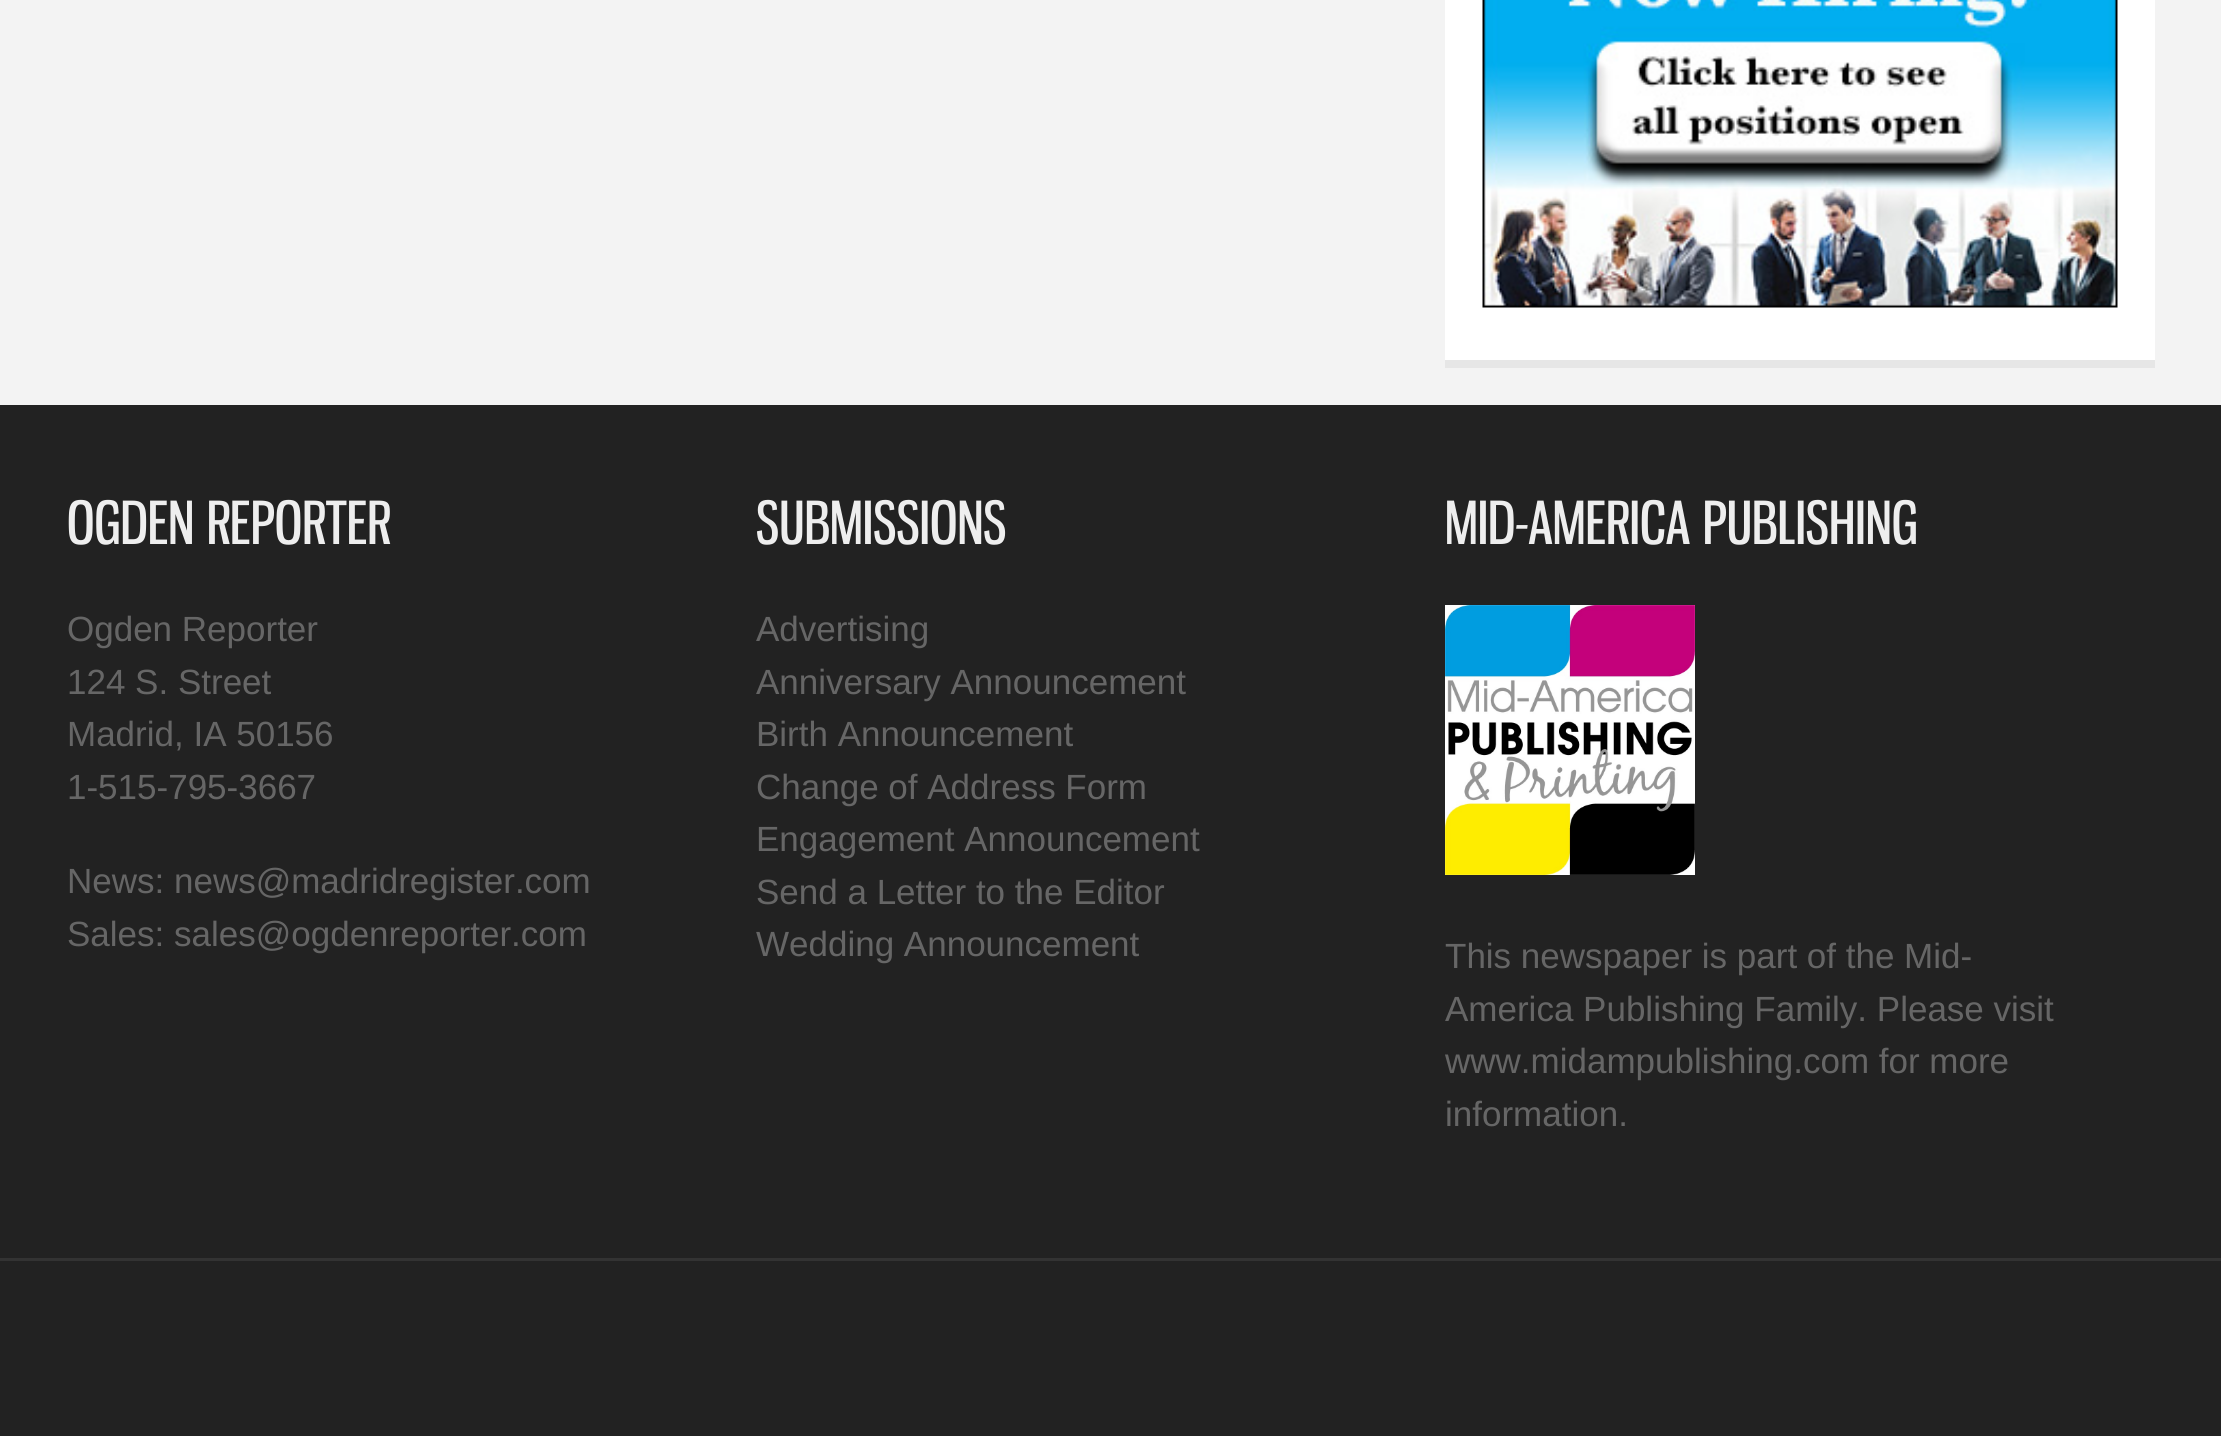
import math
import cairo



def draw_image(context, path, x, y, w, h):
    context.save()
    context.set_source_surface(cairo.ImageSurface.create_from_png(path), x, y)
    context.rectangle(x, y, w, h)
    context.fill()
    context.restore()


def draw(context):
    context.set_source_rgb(243 / 255, 243 / 255, 243 / 255)
    context.paint()
    context.set_source_rgb(1, 1, 1)
    context.rectangle(1445, 0, 710, 360)
    context.fill()
    context.set_source_rgb(230 / 255, 230 / 255, 230 / 255)
    context.rectangle(1445, 360, 710, 8)
    context.fill()
    draw_image(context, "images/1.png", 1482, 0, 636, 308)
    context.set_source_rgb(34 / 255, 34 / 255, 34 / 255)
    context.rectangle(0, 405, 2221, 853)
    context.fill()
    draw_image(context, "images/2.png", 1445, 605, 250, 270)
    context.rectangle(0, 1261, 2221, 175)
    context.fill()
    context.set_source_rgb(51 / 255, 51 / 255, 51 / 255)
    context.rectangle(0, 1258, 2221, 3)
    context.fill()
    context.select_font_face("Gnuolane")
    context.set_font_size(58.25)
    context.set_source_rgb(238 / 255, 238 / 255, 238 / 255)
    context.move_to(67, 544)
    context.show_text("OGDEN REPORTER")
    context.select_font_face("Liberation Sans")
    context.set_font_size(35)
    context.set_source_rgb(102 / 255, 102 / 255, 102 / 255)
    context.move_to(67, 641)
    context.show_text("Ogden Reporter")
    context.move_to(67, 694)
    context.show_text("124 S. Street")
    context.move_to(67, 746)
    context.show_text("Madrid, IA 50156")
    context.move_to(67, 799)
    context.show_text("1-515-795-3667")
    context.move_to(67, 893)
    context.show_text("News: news@madridregister.com")
    context.move_to(67, 946)
    context.show_text("Sales: sales@ogdenreporter.com")
    context.select_font_face("Gnuolane")
    context.set_font_size(58.25)
    context.set_source_rgb(238 / 255, 238 / 255, 238 / 255)
    context.move_to(756, 544)
    context.show_text("SUBMISSIONS")
    context.select_font_face("Liberation Sans")
    context.set_font_size(35)
    context.set_source_rgb(102 / 255, 102 / 255, 102 / 255)
    context.move_to(756, 641)
    context.show_text("Advertising")
    context.move_to(756, 694)
    context.show_text("Anniversary Announcement")
    context.move_to(756, 746)
    context.show_text("Birth Announcement")
    context.move_to(756, 799)
    context.show_text("Change of Address Form")
    context.move_to(756, 851)
    context.show_text("Engagement Announcement")
    context.move_to(756, 904)
    context.show_text("Send a Letter to the Editor")
    context.move_to(756, 956)
    context.show_text("Wedding Announcement")
    context.select_font_face("Gnuolane")
    context.set_font_size(58.25)
    context.set_source_rgb(238 / 255, 238 / 255, 238 / 255)
    context.move_to(1445, 544)
    context.show_text("MID-AMERICA PUBLISHING")
    context.select_font_face("Liberation Sans")
    context.set_font_size(35)
    context.set_source_rgb(102 / 255, 102 / 255, 102 / 255)
    context.move_to(1445, 968)
    context.show_text("This newspaper is part of the Mid-")
    context.move_to(1445, 1021)
    context.show_text("America Publishing Family. Please visit")
    context.move_to(1445, 1073)
    context.show_text("www.midampublishing.com for more")
    context.move_to(1445, 1126)
    context.show_text("information.")


surface = cairo.ImageSurface(cairo.Format.RGB24, 2221, 1436)
context = cairo.Context(surface)
options = cairo.FontOptions()
options.set_hint_metrics(cairo.HintMetrics.OFF)
options.set_hint_style(cairo.HintStyle.NONE)
context.set_font_options(options)
context.set_miter_limit(4)
draw(context)
surface.write_to_png("out.png")
